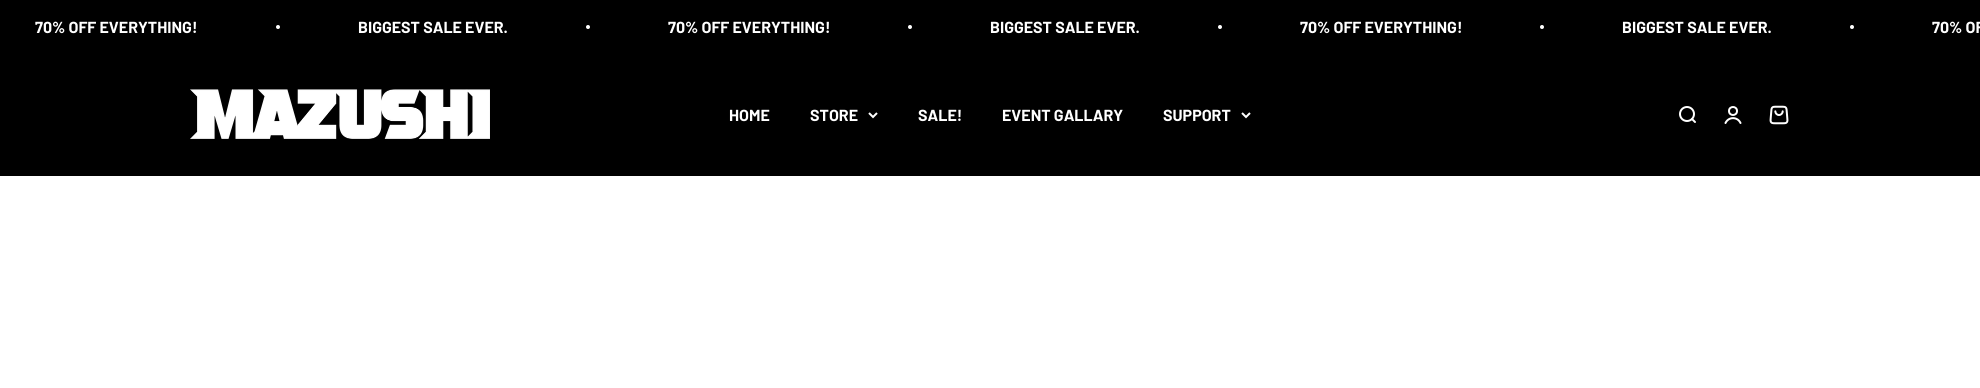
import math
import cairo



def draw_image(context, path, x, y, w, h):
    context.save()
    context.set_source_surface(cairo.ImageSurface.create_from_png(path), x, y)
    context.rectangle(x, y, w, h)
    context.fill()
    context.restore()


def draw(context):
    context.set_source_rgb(1, 1, 1)
    context.paint()
    context.set_source_rgb(0, 0, 0)
    context.rectangle(0, 0, 1980, 176)
    context.fill()
    context.set_source_rgb(1, 1, 1)
    context.arc(278, 27, 2, 0, 2 * math.pi)
    context.fill()
    context.arc(588, 27, 2, 0, 2 * math.pi)
    context.fill()
    context.arc(910, 27, 2, 0, 2 * math.pi)
    context.fill()
    context.arc(1220, 27, 2, 0, 2 * math.pi)
    context.fill()
    context.arc(1542, 27, 2, 0, 2 * math.pi)
    context.fill()
    context.arc(1852, 27, 2, 0, 2 * math.pi)
    context.fill()
    draw_image(context, "images/1.png", 190, 89, 300, 50)
    context.new_path()
    context.move_to(869, 113)
    context.line_to(873, 117)
    context.line_to(877, 113)
    context.stroke()
    context.new_path()
    context.move_to(1242, 113)
    context.line_to(1246, 117)
    context.line_to(1250, 113)
    context.stroke()
    draw_image(context, "images/2.png", 1679, 106, 17, 17)
    context.arc(1733, 111, 4, 0, 2 * math.pi)
    context.stroke()
    context.new_path()
    context.move_to(1725.5, 123)
    context.curve_to(1728.5, 116.5, 1737.5, 116.5, 1740.5, 123)
    context.set_line_cap(cairo.LineCap.ROUND)
    context.stroke()
    draw_image(context, "images/3.png", 1769, 105, 20, 20)
    context.select_font_face("Barlow", cairo.FontSlant.NORMAL, cairo.FontWeight.BOLD)
    context.set_font_size(16)
    context.move_to(35, 33)
    context.show_text("70% OFF EVERYTHING!")
    context.move_to(358, 33)
    context.show_text("BIGGEST SALE EVER.")
    context.move_to(668, 33)
    context.show_text("70% OFF EVERYTHING!")
    context.move_to(990, 33)
    context.show_text("BIGGEST SALE EVER.")
    context.move_to(1300, 33)
    context.show_text("70% OFF EVERYTHING!")
    context.move_to(1622, 33)
    context.show_text("BIGGEST SALE EVER.")
    context.move_to(1932, 33)
    context.show_text("70% OF")
    context.move_to(729, 121)
    context.show_text("HOME")
    context.move_to(810, 121)
    context.show_text("STORE")
    context.move_to(918, 121)
    context.show_text("SALE!")
    context.move_to(1002, 121)
    context.show_text("EVENT GALLARY")
    context.move_to(1163, 121)
    context.show_text("SUPPORT")


surface = cairo.ImageSurface(cairo.Format.RGB24, 1980, 388)
context = cairo.Context(surface)
options = cairo.FontOptions()
options.set_hint_metrics(cairo.HintMetrics.OFF)
options.set_hint_style(cairo.HintStyle.NONE)
context.set_font_options(options)
context.set_miter_limit(4)
draw(context)
surface.write_to_png("out.png")
